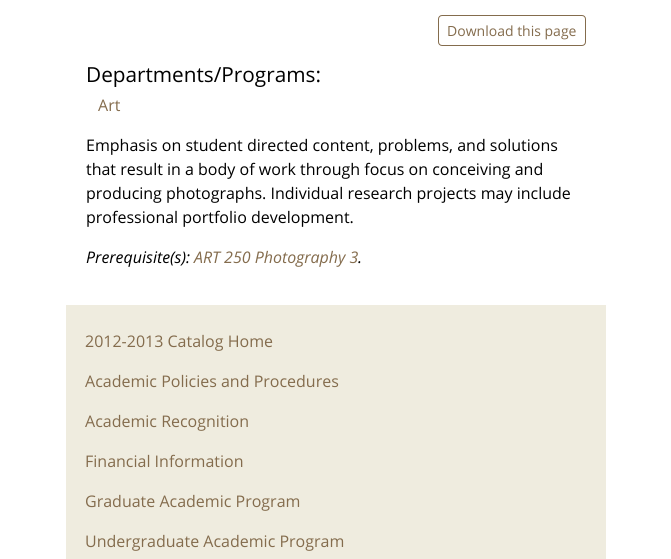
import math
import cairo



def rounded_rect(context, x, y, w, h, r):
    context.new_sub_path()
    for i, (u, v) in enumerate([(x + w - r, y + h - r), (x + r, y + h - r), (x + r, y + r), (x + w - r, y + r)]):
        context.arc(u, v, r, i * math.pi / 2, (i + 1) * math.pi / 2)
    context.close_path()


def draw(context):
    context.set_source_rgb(1, 1, 1)
    context.paint()
    rounded_rect(context, 438.5, 15.5, 147, 30, 3.5)
    context.set_source_rgb(132 / 255, 108 / 255, 77 / 255)
    context.set_line_width(1)
    context.stroke()
    context.set_source_rgb(239 / 255, 236 / 255, 223 / 255)
    context.rectangle(66, 305, 540, 254)
    context.fill()
    context.select_font_face("Open Sans")
    context.set_font_size(14)
    context.set_source_rgb(132 / 255, 108 / 255, 77 / 255)
    context.move_to(447, 36)
    context.show_text("Download this page")
    context.set_font_size(20.75)
    context.set_source_rgb(0, 0, 0)
    context.move_to(86, 82)
    context.show_text("Departments/Programs:")
    context.set_font_size(16)
    context.set_source_rgb(132 / 255, 108 / 255, 77 / 255)
    context.move_to(98, 111)
    context.show_text("Art")
    context.set_source_rgb(0, 0, 0)
    context.move_to(86, 151)
    context.show_text("Emphasis on student directed content, problems, and solutions")
    context.move_to(86, 175)
    context.show_text("that result in a body of work through focus on conceiving and")
    context.move_to(86, 199)
    context.show_text("producing photographs. Individual research projects may include")
    context.move_to(86, 223)
    context.show_text("professional portfolio development.")
    context.select_font_face("Open Sans", cairo.FontSlant.ITALIC)
    context.move_to(86, 263)
    context.show_text("Prerequisite(s):")
    context.set_source_rgb(132 / 255, 108 / 255, 77 / 255)
    context.move_to(194, 263)
    context.show_text("ART 250 Photography 3")
    context.set_source_rgb(0, 0, 0)
    context.move_to(358, 263)
    context.show_text(".")
    context.select_font_face("Open Sans")
    context.set_source_rgb(132 / 255, 108 / 255, 77 / 255)
    context.move_to(85, 347)
    context.show_text("2012-2013 Catalog Home")
    context.move_to(85, 387)
    context.show_text("Academic Policies and Procedures")
    context.move_to(85, 427)
    context.show_text("Academic Recognition")
    context.move_to(85, 467)
    context.show_text("Financial Information")
    context.move_to(85, 507)
    context.show_text("Graduate Academic Program")
    context.move_to(85, 547)
    context.show_text("Undergraduate Academic Program")


surface = cairo.ImageSurface(cairo.Format.RGB24, 671, 559)
context = cairo.Context(surface)
options = cairo.FontOptions()
options.set_hint_metrics(cairo.HintMetrics.OFF)
options.set_hint_style(cairo.HintStyle.NONE)
context.set_font_options(options)
context.set_miter_limit(4)
draw(context)
surface.write_to_png("out.png")
